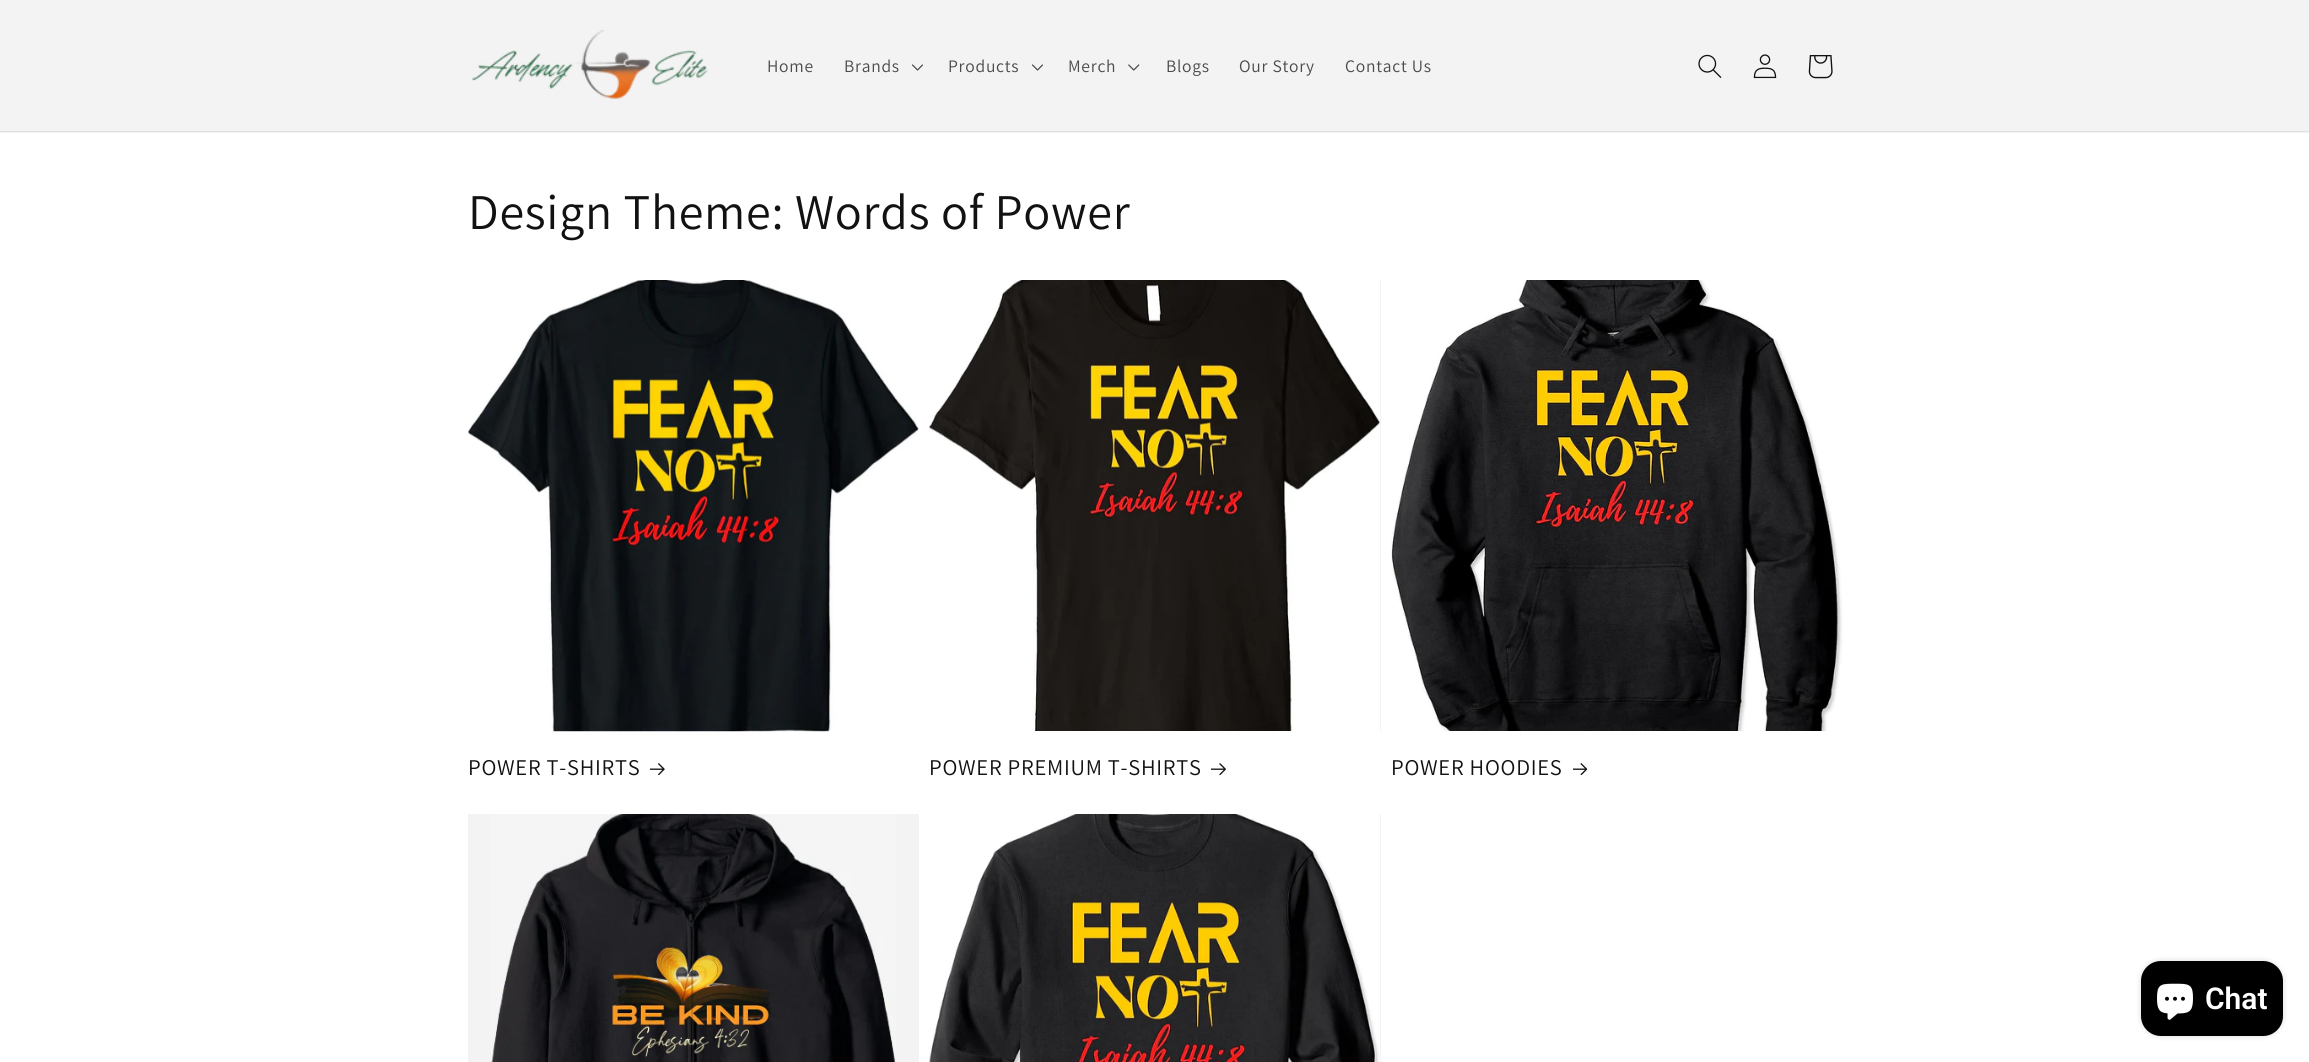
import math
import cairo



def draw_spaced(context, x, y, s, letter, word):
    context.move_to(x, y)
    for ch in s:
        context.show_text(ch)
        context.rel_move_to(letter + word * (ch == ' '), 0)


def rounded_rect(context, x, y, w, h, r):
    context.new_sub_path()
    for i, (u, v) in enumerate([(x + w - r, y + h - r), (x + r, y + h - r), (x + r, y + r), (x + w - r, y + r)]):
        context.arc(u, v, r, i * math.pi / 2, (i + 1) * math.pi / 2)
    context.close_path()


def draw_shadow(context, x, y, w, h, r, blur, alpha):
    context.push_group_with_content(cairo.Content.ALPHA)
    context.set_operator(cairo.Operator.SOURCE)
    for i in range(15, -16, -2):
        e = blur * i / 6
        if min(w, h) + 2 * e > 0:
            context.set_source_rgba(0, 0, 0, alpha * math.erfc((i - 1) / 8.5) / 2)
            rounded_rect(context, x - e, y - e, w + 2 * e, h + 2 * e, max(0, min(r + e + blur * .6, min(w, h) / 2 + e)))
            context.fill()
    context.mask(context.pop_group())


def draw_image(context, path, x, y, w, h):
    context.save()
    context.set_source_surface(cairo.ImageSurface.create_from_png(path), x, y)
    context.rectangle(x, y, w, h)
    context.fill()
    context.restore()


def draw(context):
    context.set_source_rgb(1, 1, 1)
    context.paint()
    context.set_source_rgb(243 / 255, 243 / 255, 243 / 255)
    context.rectangle(0, 0, 2309, 133)
    context.fill()
    context.set_source_rgb(225 / 255, 225 / 255, 225 / 255)
    context.rectangle(0, 131, 2309, 1)
    context.fill()
    draw_image(context, "images/1.png", 471, 30, 237, 70)
    draw_image(context, "images/2.png", 912, 64, 11, 7)
    draw_image(context, "images/2.png", 1032, 64, 11, 7)
    draw_image(context, "images/3.png", 1128, 64, 12, 7)
    draw_image(context, "images/4.png", 1698, 54, 24, 24)
    draw_image(context, "images/5.png", 1753, 54, 24, 25)
    draw_image(context, "images/6.png", 1808, 55, 25, 24)
    draw_image(context, "images/7.png", 468, 280, 451, 452)
    draw_image(context, "images/8.png", 650, 763, 15, 12)
    context.set_source_rgb(243 / 255, 243 / 255, 243 / 255)
    context.rectangle(1380, 280, 1, 451)
    context.fill()
    draw_image(context, "images/9.png", 929, 280, 451, 451)
    draw_image(context, "images/10.png", 1211, 763, 15, 12)
    draw_image(context, "images/11.png", 1391, 280, 452, 451)
    draw_image(context, "images/12.png", 1573, 763, 15, 12)
    context.rectangle(468, 814, 451, 248)
    context.fill()
    draw_image(context, "images/13.png", 491, 814, 405, 248)
    context.rectangle(1380, 814, 1, 248)
    context.fill()
    draw_image(context, "images/14.png", 929, 814, 451, 248)
    context.set_source_rgb(0, 0, 0)
    draw_shadow(context, 2141, 961, 142, 75, 20, 3, 0.15)
    context.set_source_rgb(0, 0, 0)
    rounded_rect(context, 2141, 961, 142, 75, 20)
    context.fill()
    draw_image(context, "images/15.png", 2157, 983, 36, 37)
    context.select_font_face("Assistant")
    context.set_font_size(17.5)
    context.set_source_rgb(74 / 255, 74 / 255, 74 / 255)
    draw_spaced(context, 767, 72, "Home", 0.75, 0)
    draw_spaced(context, 844, 72, "Brands", 0.75, 0)
    draw_spaced(context, 948, 72, "Products", 0.75, 0)
    draw_spaced(context, 1068, 72, "Merch", 0.75, 0)
    draw_spaced(context, 1166, 72, "Blogs", 0.75, 0)
    draw_spaced(context, 1239, 72, "Our Story", 0.75, 0)
    draw_spaced(context, 1345, 72, "Contact Us", 0.75, 0)
    context.set_font_size(50)
    context.set_source_rgb(18 / 255, 18 / 255, 18 / 255)
    draw_spaced(context, 468, 229, "Design Theme: Words of Power", 0.75, 0)
    context.set_font_size(22.5)
    draw_spaced(context, 468, 775, "POWER T-SHIRTS", 0.75, 0)
    draw_spaced(context, 929, 775, "POWER PREMIUM T-SHIRTS", 0.75, 0)
    draw_spaced(context, 1391, 775, "POWER HOODIES", 0.75, 0)
    context.select_font_face("Roboto SemiBold")
    context.set_font_size(30)
    context.set_source_rgb(1, 1, 1)
    context.move_to(2205, 1009)
    context.show_text("Chat")


surface = cairo.ImageSurface(cairo.Format.RGB24, 2309, 1062)
context = cairo.Context(surface)
options = cairo.FontOptions()
options.set_hint_metrics(cairo.HintMetrics.OFF)
options.set_hint_style(cairo.HintStyle.NONE)
context.set_font_options(options)
context.set_miter_limit(4)
draw(context)
surface.write_to_png("out.png")
